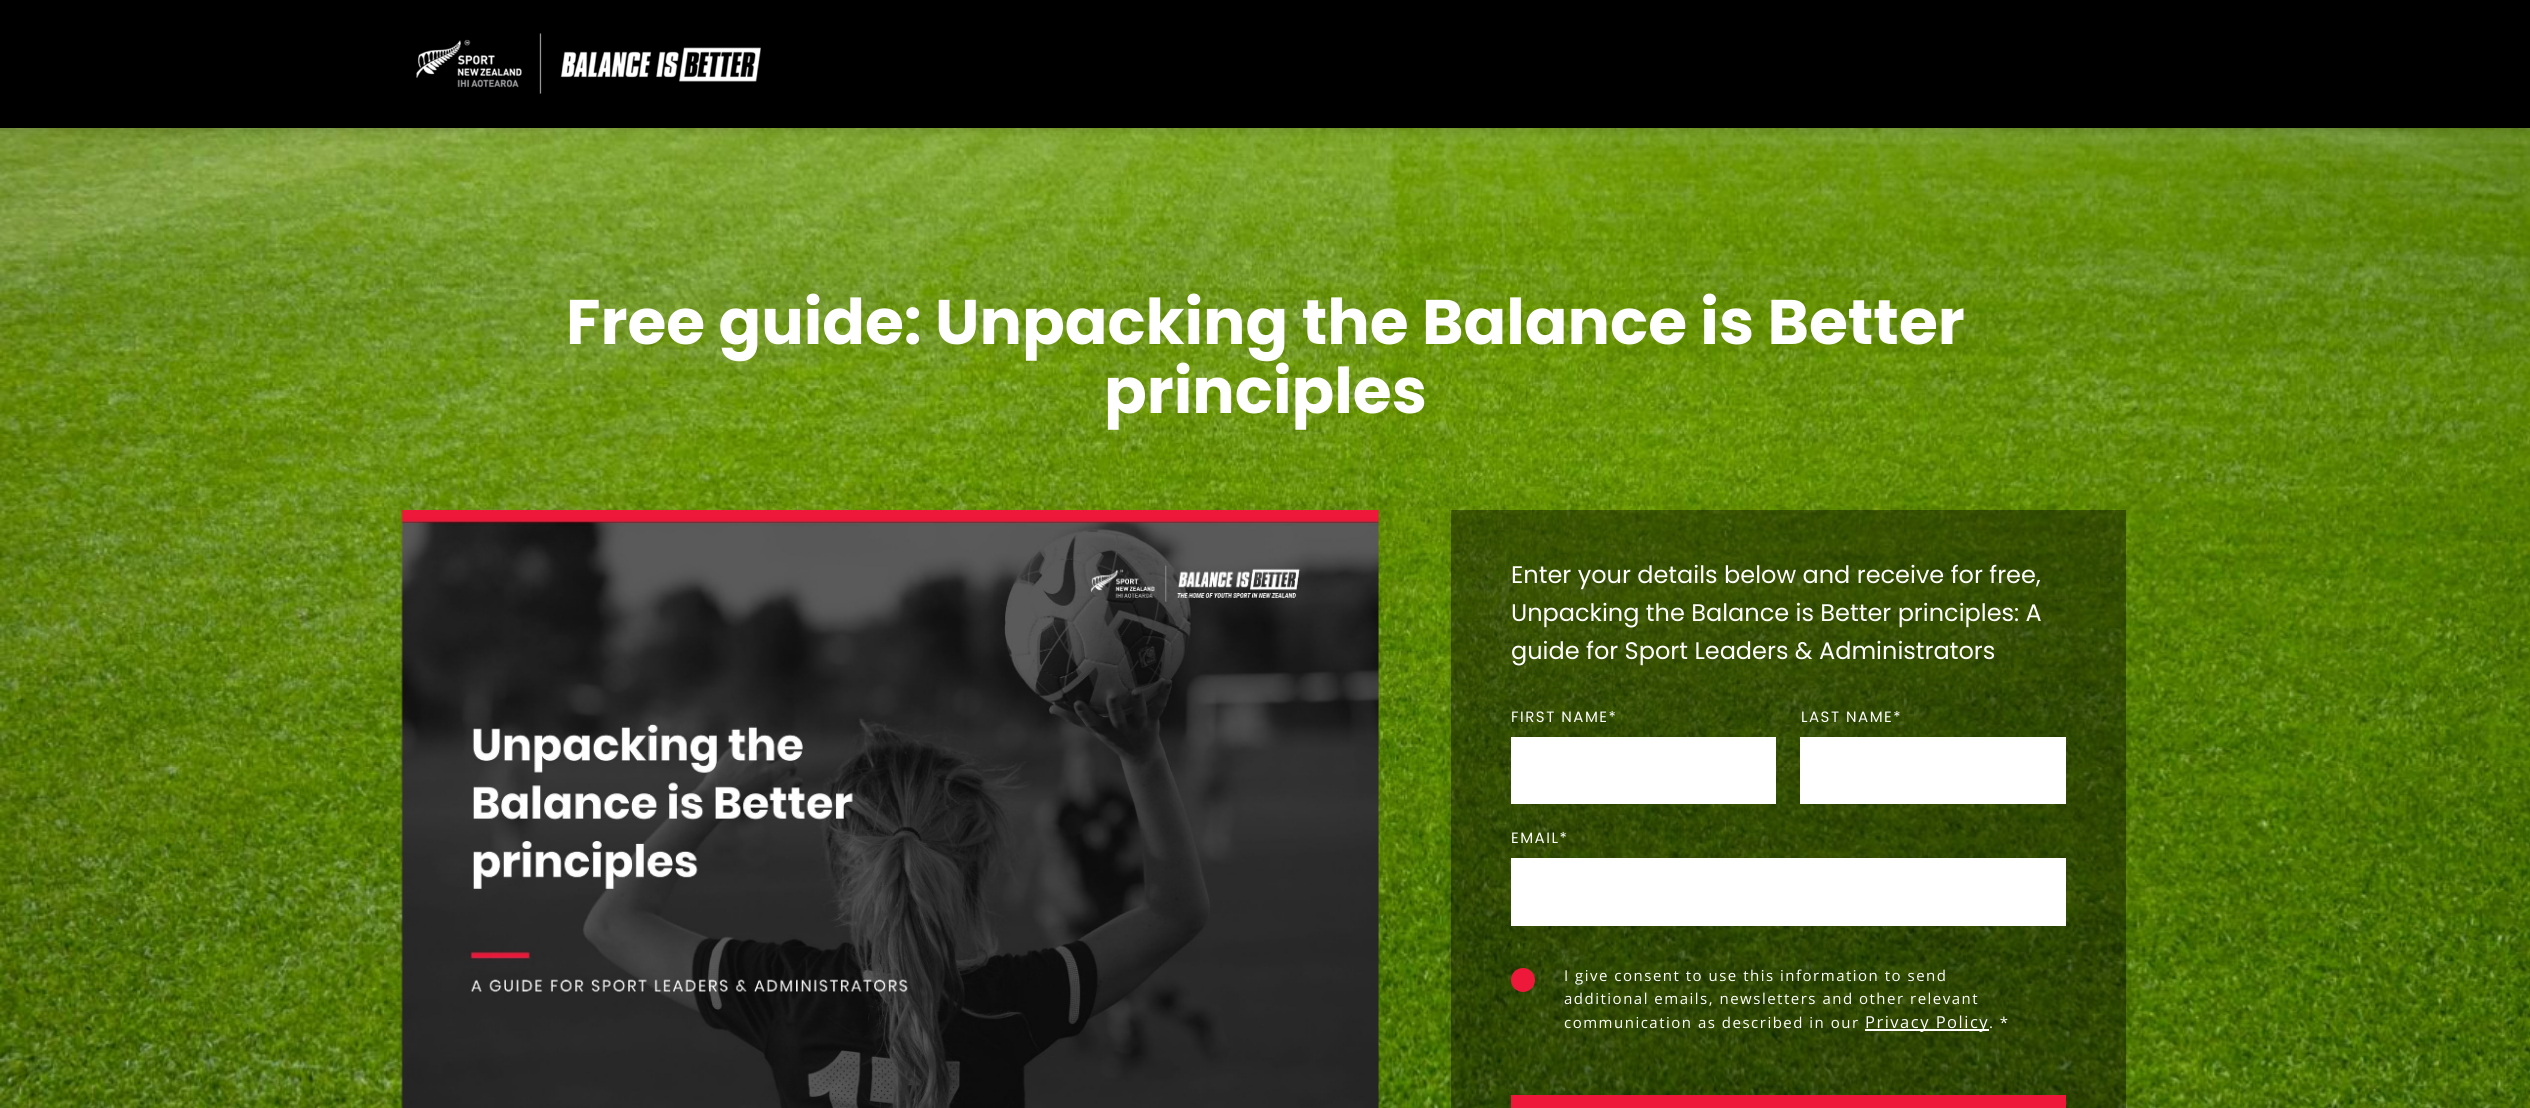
import math
import cairo



def draw_spaced(context, x, y, s, letter, word):
    context.move_to(x, y)
    for ch in s:
        context.show_text(ch)
        context.rel_move_to(letter + word * (ch == ' '), 0)


def rounded_rect(context, x, y, w, h, r):
    context.new_sub_path()
    for i, (u, v) in enumerate([(x + w - r, y + h - r), (x + r, y + h - r), (x + r, y + r), (x + w - r, y + r)]):
        context.arc(u, v, r, i * math.pi / 2, (i + 1) * math.pi / 2)
    context.close_path()


def draw_shadow(context, x, y, w, h, r, blur, alpha):
    context.push_group_with_content(cairo.Content.ALPHA)
    context.set_operator(cairo.Operator.SOURCE)
    for i in range(15, -16, -2):
        e = blur * i / 6
        if min(w, h) + 2 * e > 0:
            context.set_source_rgba(0, 0, 0, alpha * math.erfc((i - 1) / 8.5) / 2)
            rounded_rect(context, x - e, y - e, w + 2 * e, h + 2 * e, max(0, min(r + e + blur * .6, min(w, h) / 2 + e)))
            context.fill()
    context.mask(context.pop_group())


def draw_image(context, path, x, y, w, h):
    context.save()
    context.set_source_surface(cairo.ImageSurface.create_from_png(path), x, y)
    context.rectangle(x, y, w, h)
    context.fill()
    context.restore()


def draw(context):
    context.set_source_rgb(1, 1, 1)
    context.paint()
    draw_image(context, "images/2.png", 0, 128, 2530, 980)
    context.set_source_rgb(0, 0, 0)
    draw_shadow(context, 0, 0, 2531, 128, 0, 6, 0.2)
    context.set_source_rgb(0, 0, 0)
    context.rectangle(0, 0, 2530, 128)
    context.fill()
    draw_image(context, "images/1.png", 416, 33, 345, 61)
    draw_image(context, "images/3.png", 401, 510, 978, 598)
    context.set_source_rgba(0, 0, 0, 0.4)
    context.rectangle(1451, 510, 675, 598)
    context.fill()
    context.set_source_rgb(1, 1, 1)
    context.rectangle(1511, 737, 265, 67)
    context.fill()
    context.rectangle(1800, 737, 266, 67)
    context.fill()
    context.rectangle(1511, 858, 555, 68)
    context.fill()
    context.set_source_rgb(238 / 255, 25 / 255, 58 / 255)
    context.arc(1523, 980, 9, 0, 2 * math.pi)
    context.fill_preserve()
    context.set_line_width(6)
    context.stroke()
    context.set_source_rgb(1, 1, 1)
    context.rectangle(1865, 1029, 124, 2)
    context.fill()
    context.set_source_rgb(238 / 255, 25 / 255, 58 / 255)
    context.rectangle(1511, 1095, 555, 13)
    context.fill()
    context.select_font_face("Poppins", cairo.FontSlant.NORMAL, cairo.FontWeight.BOLD)
    context.set_font_size(63)
    context.set_source_rgb(1, 1, 1)
    context.move_to(566, 344)
    context.show_text("Free guide: Unpacking the Balance is Better")
    context.move_to(1104, 413)
    context.show_text("principles")
    context.select_font_face("Poppins")
    context.set_font_size(24)
    context.move_to(1511, 583)
    context.show_text("Enter your details below and receive for free,")
    context.move_to(1511, 621)
    context.show_text("Unpacking the Balance is Better principles: A")
    context.move_to(1511, 659)
    context.show_text("guide for Sport Leaders & Administrators")
    context.set_font_size(15)
    draw_spaced(context, 1511, 722, "FIRST NAME*", 1.5, 0)
    draw_spaced(context, 1801, 722, "LAST NAME*", 1.5, 0)
    draw_spaced(context, 1511, 843, "EMAIL*", 1.5, 0)
    context.select_font_face("Open Sans")
    draw_spaced(context, 1564, 981, "I give consent to use this information to send", 1.5, 0)
    draw_spaced(context, 1564, 1004, "additional emails, newsletters and other relevant", 1.5, 0)
    draw_spaced(context, 1564, 1028, "communication as described in our", 1.5, 0)
    context.set_font_size(16.5)
    draw_spaced(context, 1865, 1028, "Privacy Policy", 1.5, 0)
    context.set_font_size(15)
    draw_spaced(context, 1989, 1028, ". *", 1.5, 0)


surface = cairo.ImageSurface(cairo.Format.RGB24, 2530, 1108)
context = cairo.Context(surface)
options = cairo.FontOptions()
options.set_hint_metrics(cairo.HintMetrics.OFF)
options.set_hint_style(cairo.HintStyle.NONE)
context.set_font_options(options)
context.set_miter_limit(4)
draw(context)
surface.write_to_png("out.png")
